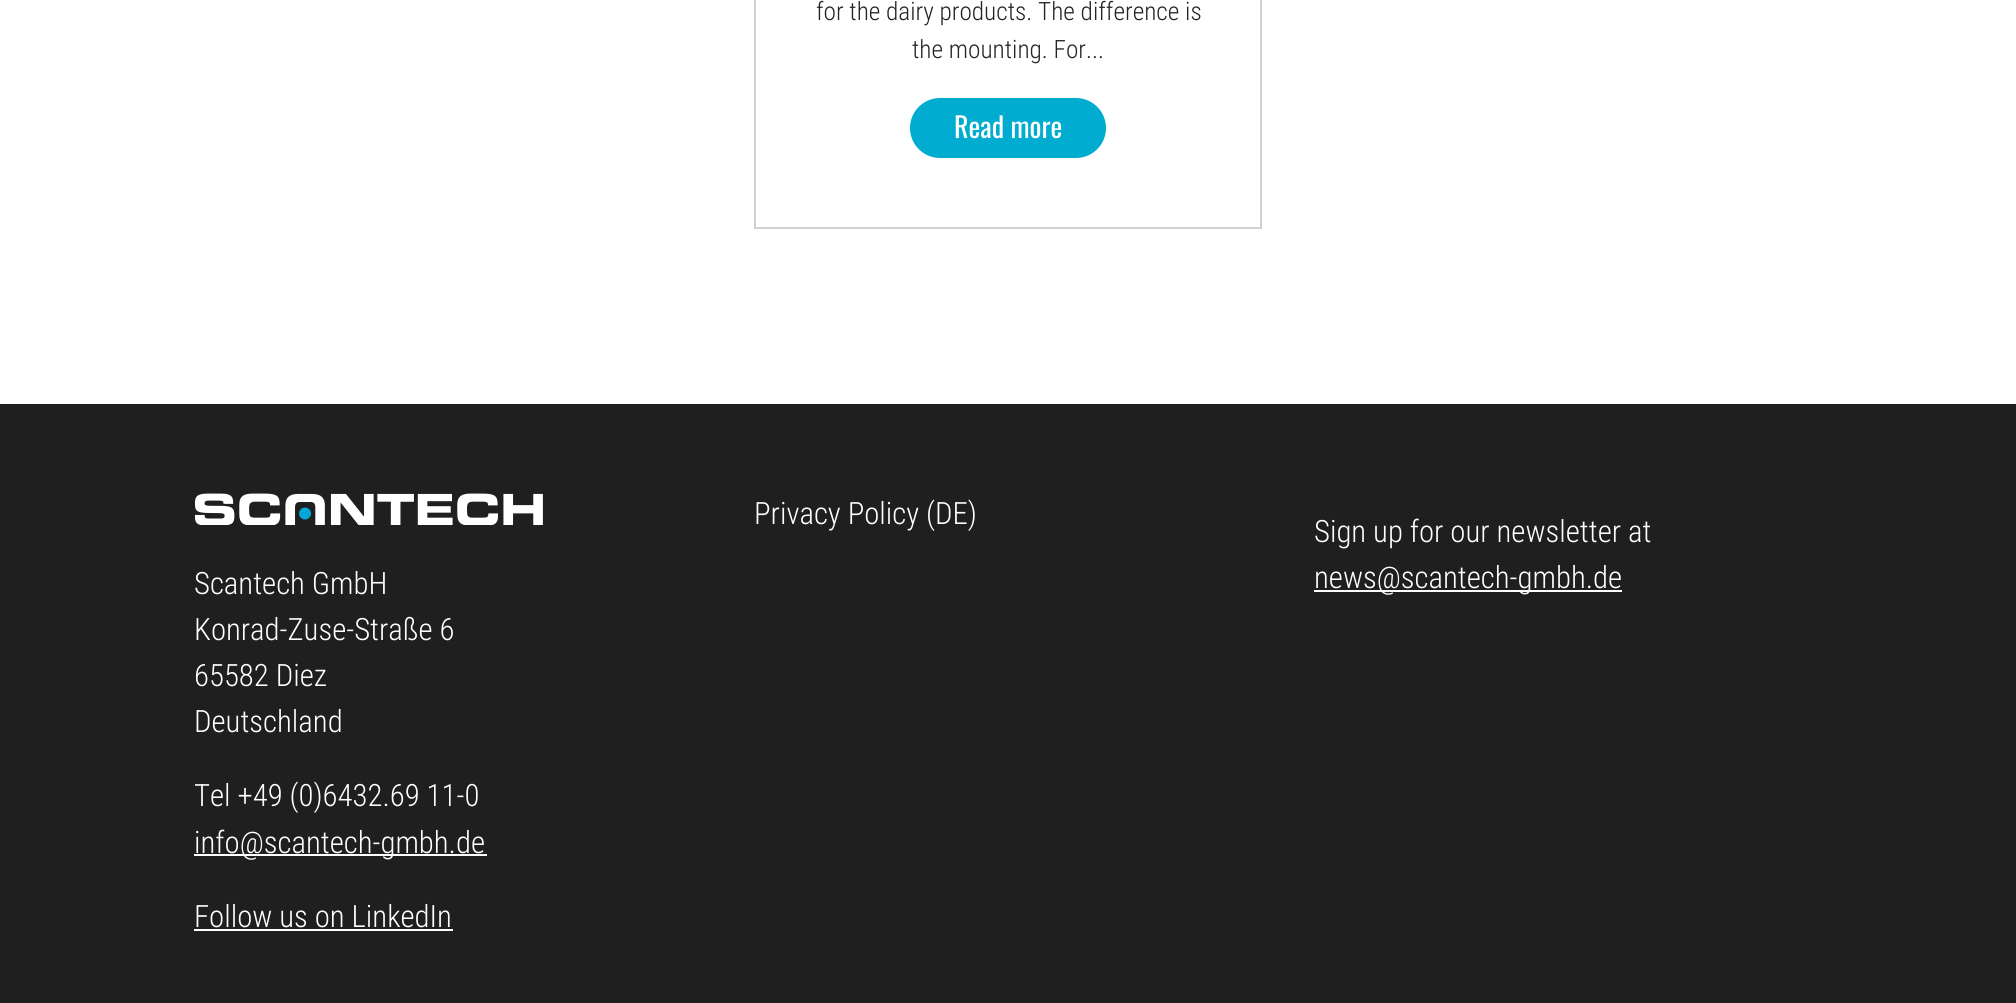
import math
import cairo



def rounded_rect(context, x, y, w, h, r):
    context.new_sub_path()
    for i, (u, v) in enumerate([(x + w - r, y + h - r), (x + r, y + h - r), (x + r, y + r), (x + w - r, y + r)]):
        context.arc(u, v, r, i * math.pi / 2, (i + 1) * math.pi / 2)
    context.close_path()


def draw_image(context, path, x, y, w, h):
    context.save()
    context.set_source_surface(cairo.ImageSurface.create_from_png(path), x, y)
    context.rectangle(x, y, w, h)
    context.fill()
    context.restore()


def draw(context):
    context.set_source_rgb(1, 1, 1)
    context.paint()
    context.rectangle(755, -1, 506, 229)
    context.set_source_rgb(210 / 255, 210 / 255, 210 / 255)
    context.stroke()
    context.set_source_rgb(0, 173 / 255, 208 / 255)
    rounded_rect(context, 911, 99, 194, 58, 29)
    context.fill_preserve()
    context.stroke()
    context.set_source_rgb(31 / 255, 31 / 255, 31 / 255)
    context.rectangle(0, 404, 2016, 599)
    context.fill()
    context.set_source_rgb(1, 1, 1)
    context.rectangle(1314, 590, 308, 2)
    context.fill()
    draw_image(context, "images/1.png", 194, 493, 349, 32)
    context.rectangle(194, 854, 293, 2)
    context.fill()
    context.rectangle(194, 929, 259, 2)
    context.fill()
    context.select_font_face("Roboto Condensed Light")
    context.set_font_size(25.25)
    context.set_source_rgb(33 / 255, 37 / 255, 41 / 255)
    context.move_to(816, 20)
    context.show_text("for the dairy products. The difference is")
    context.move_to(912, 58)
    context.show_text("the mounting. For...")
    context.select_font_face("Oswald")
    context.set_font_size(28)
    context.set_source_rgb(1, 1, 1)
    context.move_to(954, 138)
    context.show_text("Read more")
    context.select_font_face("Roboto Condensed Light")
    context.set_font_size(30.75)
    context.move_to(754, 524)
    context.show_text("Privacy Policy (DE)")
    context.move_to(1314, 542)
    context.show_text("Sign up for our newsletter at")
    context.move_to(1314, 588)
    context.show_text("news@scantech-gmbh.de")
    context.move_to(194, 594)
    context.show_text("Scantech GmbH")
    context.move_to(194, 640)
    context.show_text("Konrad-Zuse-Straße 6")
    context.move_to(194, 686)
    context.show_text("65582 Diez")
    context.move_to(194, 732)
    context.show_text("Deutschland")
    context.move_to(194, 806)
    context.show_text("Tel +49 (0)6432.69 11-0")
    context.move_to(194, 853)
    context.show_text("info@scantech-gmbh.de")
    context.move_to(194, 927)
    context.show_text("Follow us on LinkedIn")


surface = cairo.ImageSurface(cairo.Format.RGB24, 2016, 1003)
context = cairo.Context(surface)
options = cairo.FontOptions()
options.set_hint_metrics(cairo.HintMetrics.OFF)
options.set_hint_style(cairo.HintStyle.NONE)
context.set_font_options(options)
context.set_miter_limit(4)
draw(context)
surface.write_to_png("out.png")
